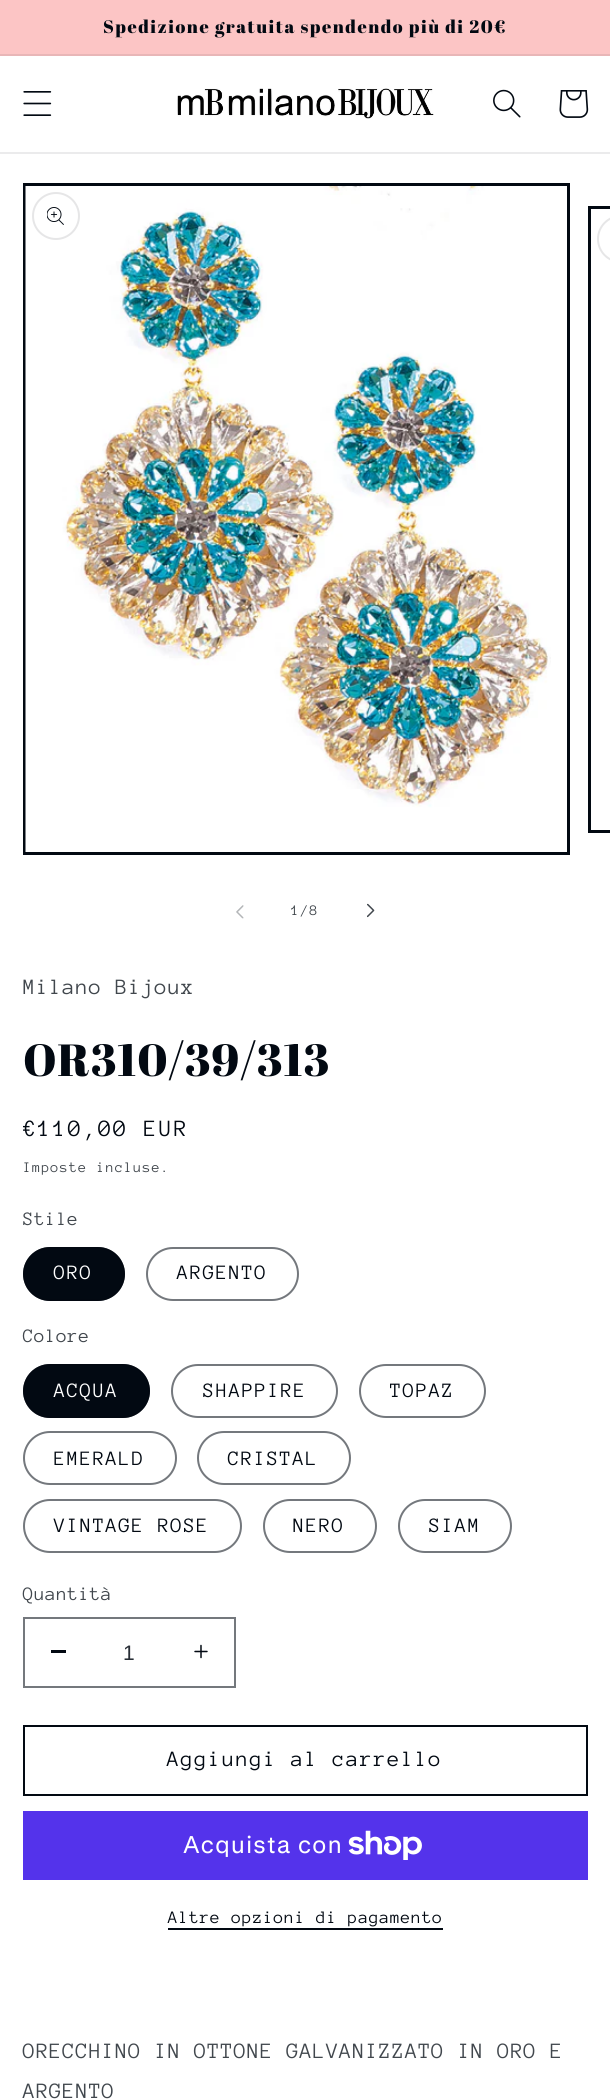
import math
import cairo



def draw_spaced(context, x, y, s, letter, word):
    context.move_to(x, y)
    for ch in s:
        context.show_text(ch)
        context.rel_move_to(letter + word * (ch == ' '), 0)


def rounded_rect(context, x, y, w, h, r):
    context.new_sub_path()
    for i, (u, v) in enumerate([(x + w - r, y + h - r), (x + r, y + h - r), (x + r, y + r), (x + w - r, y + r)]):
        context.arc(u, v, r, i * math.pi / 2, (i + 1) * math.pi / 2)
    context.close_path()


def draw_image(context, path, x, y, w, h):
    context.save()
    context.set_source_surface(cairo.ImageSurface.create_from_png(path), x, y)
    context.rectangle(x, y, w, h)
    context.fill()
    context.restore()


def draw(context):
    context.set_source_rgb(1, 1, 1)
    context.paint()
    context.set_source_rgb(252 / 255, 197 / 255, 197 / 255)
    context.rectangle(0, 0, 610, 54)
    context.fill()
    context.set_source_rgb(232 / 255, 182 / 255, 183 / 255)
    context.rectangle(0, 54, 610, 2)
    context.fill()
    context.set_source_rgb(235 / 255, 235 / 255, 236 / 255)
    context.rectangle(0, 152, 610, 2)
    context.fill()
    draw_image(context, "images/1.png", 23, 91, 29, 25)
    draw_image(context, "images/2.png", 177, 88, 257, 31)
    draw_image(context, "images/3.png", 493, 89, 28, 29)
    draw_image(context, "images/4.png", 559, 90, 30, 28)
    context.rectangle(24.5, 184.5, 544, 669)
    context.set_source_rgb(2 / 255, 9 / 255, 18 / 255)
    context.set_line_width(3)
    context.stroke()
    draw_image(context, "images/5.png", 25, 186, 526, 666)
    context.arc(56, 216, 23, 0, 2 * math.pi)
    context.set_source_rgb(230 / 255, 230 / 255, 231 / 255)
    context.set_line_width(2)
    context.stroke()
    draw_image(context, "images/6.png", 47, 207, 17, 18)
    context.rectangle(589.5, 207.5, 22, 624)
    context.set_source_rgb(2 / 255, 9 / 255, 18 / 255)
    context.set_line_width(3)
    context.stroke()
    rounded_rect(context, 598, 216, 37, 46, 23)
    context.set_source_rgb(230 / 255, 230 / 255, 231 / 255)
    context.set_line_width(2)
    context.stroke()
    draw_image(context, "images/7.png", 236, 905, 8, 14)
    draw_image(context, "images/8.png", 367, 903, 8, 15)
    context.set_source_rgb(2 / 255, 9 / 255, 18 / 255)
    rounded_rect(context, 23, 1247, 102, 54, 27)
    context.fill()
    rounded_rect(context, 24, 1248, 100, 52, 26)
    context.set_source_rgba(2 / 255, 9 / 255, 18 / 255, 0.55)
    context.stroke()
    rounded_rect(context, 147, 1248, 151, 52, 26)
    context.set_source_rgb(116 / 255, 120 / 255, 125 / 255)
    context.stroke()
    context.set_source_rgb(2 / 255, 9 / 255, 18 / 255)
    rounded_rect(context, 23, 1364, 127, 54, 27)
    context.fill()
    rounded_rect(context, 24, 1365, 125, 52, 26)
    context.set_source_rgba(2 / 255, 9 / 255, 18 / 255, 0.55)
    context.stroke()
    rounded_rect(context, 172, 1365, 165, 52, 26)
    context.set_source_rgb(116 / 255, 120 / 255, 125 / 255)
    context.stroke()
    rounded_rect(context, 360, 1365, 125, 52, 26)
    context.stroke()
    rounded_rect(context, 24, 1432, 152, 52, 26)
    context.stroke()
    rounded_rect(context, 198, 1432, 152, 52, 26)
    context.stroke()
    rounded_rect(context, 24, 1500, 217, 52, 26)
    context.stroke()
    rounded_rect(context, 264, 1500, 112, 52, 26)
    context.stroke()
    rounded_rect(context, 399, 1500, 112, 52, 26)
    context.stroke()
    context.set_source_rgb(2 / 255, 9 / 255, 18 / 255)
    context.rectangle(51, 1650, 15, 3)
    context.fill()
    draw_image(context, "images/9.png", 194, 1644, 14, 15)
    context.rectangle(24, 1618, 211, 69)
    context.set_source_rgb(116 / 255, 120 / 255, 125 / 255)
    context.stroke()
    context.rectangle(24, 1726, 563, 69)
    context.set_source_rgb(2 / 255, 9 / 255, 18 / 255)
    context.stroke()
    context.set_source_rgb(84 / 255, 51 / 255, 235 / 255)
    context.rectangle(23, 1811, 565, 69)
    context.fill()
    draw_image(context, "images/10.png", 348, 1830, 74, 30)
    context.set_source_rgb(2 / 255, 9 / 255, 18 / 255)
    context.rectangle(168, 1928, 275, 2)
    context.fill()
    context.select_font_face("Abril Fatface")
    context.set_font_size(18)
    draw_spaced(context, 103, 33, "Spedizione gratuita spendendo più di 20€", 1.5, 0)
    context.select_font_face("Anonymous Pro")
    context.set_font_size(15)
    context.set_source_rgb(65 / 255, 71 / 255, 77 / 255)
    draw_spaced(context, 291, 915, "1/8", 1, 0)
    context.set_font_size(22.5)
    draw_spaced(context, 23, 994, "Milano Bijoux", 0.9, 0)
    context.select_font_face("Abril Fatface")
    context.set_font_size(45)
    context.set_source_rgb(2 / 255, 9 / 255, 18 / 255)
    draw_spaced(context, 23, 1076, "OR310/39/313", 0.9, 0)
    context.select_font_face("Anonymous Pro")
    context.set_font_size(24)
    draw_spaced(context, 23, 1136, "€110,00 EUR", 2, 0)
    context.set_font_size(15)
    context.set_source_rgb(65 / 255, 71 / 255, 77 / 255)
    draw_spaced(context, 23, 1172, "Imposte incluse.", 1, 0)
    context.set_font_size(19.5)
    draw_spaced(context, 23, 1225, "Stile", 0.5, 0)
    context.set_font_size(21)
    context.set_source_rgb(1, 1, 1)
    draw_spaced(context, 54, 1279, "ORO", 1.5, 0)
    context.set_source_rgb(2 / 255, 9 / 255, 18 / 255)
    draw_spaced(context, 177, 1279, "ARGENTO", 1.5, 0)
    context.set_font_size(19.5)
    context.set_source_rgb(65 / 255, 71 / 255, 77 / 255)
    draw_spaced(context, 23, 1342, "Colore", 0.5, 0)
    context.set_font_size(21)
    context.set_source_rgb(1, 1, 1)
    draw_spaced(context, 54, 1397, "ACQUA", 1.5, 0)
    context.set_source_rgb(2 / 255, 9 / 255, 18 / 255)
    draw_spaced(context, 203, 1397, "SHAPPIRE", 1.5, 0)
    draw_spaced(context, 390, 1397, "TOPAZ", 1.5, 0)
    draw_spaced(context, 54, 1465, "EMERALD", 1.5, 0)
    draw_spaced(context, 228, 1465, "CRISTAL", 1.5, 0)
    draw_spaced(context, 54, 1532, "VINTAGE ROSE", 1.5, 0)
    draw_spaced(context, 293, 1532, "NERO", 1.5, 0)
    draw_spaced(context, 429, 1532, "SIAM", 1.5, 0)
    context.set_font_size(19.5)
    context.set_source_rgb(65 / 255, 71 / 255, 77 / 255)
    draw_spaced(context, 23, 1600, "Quantità", 0.5, 0)
    context.select_font_face("Liberation Sans")
    context.set_font_size(21)
    context.set_source_rgb(40 / 255, 46 / 255, 54 / 255)
    context.move_to(123, 1660)
    context.show_text("1")
    context.select_font_face("Anonymous Pro")
    context.set_font_size(22.5)
    context.set_source_rgb(2 / 255, 9 / 255, 18 / 255)
    draw_spaced(context, 167, 1766, "Aggiungi al carrello", 1.5, 0)
    context.select_font_face("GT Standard")
    context.set_font_size(24)
    context.set_source_rgb(1, 1, 1)
    draw_spaced(context, 183, 1853, "Acquista con", 0.9, 0)
    context.select_font_face("Anonymous Pro")
    context.set_font_size(18)
    context.set_source_rgb(2 / 255, 9 / 255, 18 / 255)
    draw_spaced(context, 168, 1923, "Altre opzioni di pagamento", 0.75, 0)
    context.set_font_size(22.5)
    context.set_source_rgb(65 / 255, 71 / 255, 77 / 255)
    draw_spaced(context, 23, 2058, "ORECCHINO IN OTTONE GALVANIZZATO IN ORO E", 0.9, 0)
    draw_spaced(context, 23, 2098, "ARGENTO", 0.9, 0)


surface = cairo.ImageSurface(cairo.Format.RGB24, 610, 2099)
context = cairo.Context(surface)
options = cairo.FontOptions()
options.set_hint_metrics(cairo.HintMetrics.OFF)
options.set_hint_style(cairo.HintStyle.NONE)
context.set_font_options(options)
context.set_miter_limit(4)
draw(context)
surface.write_to_png("out.png")
